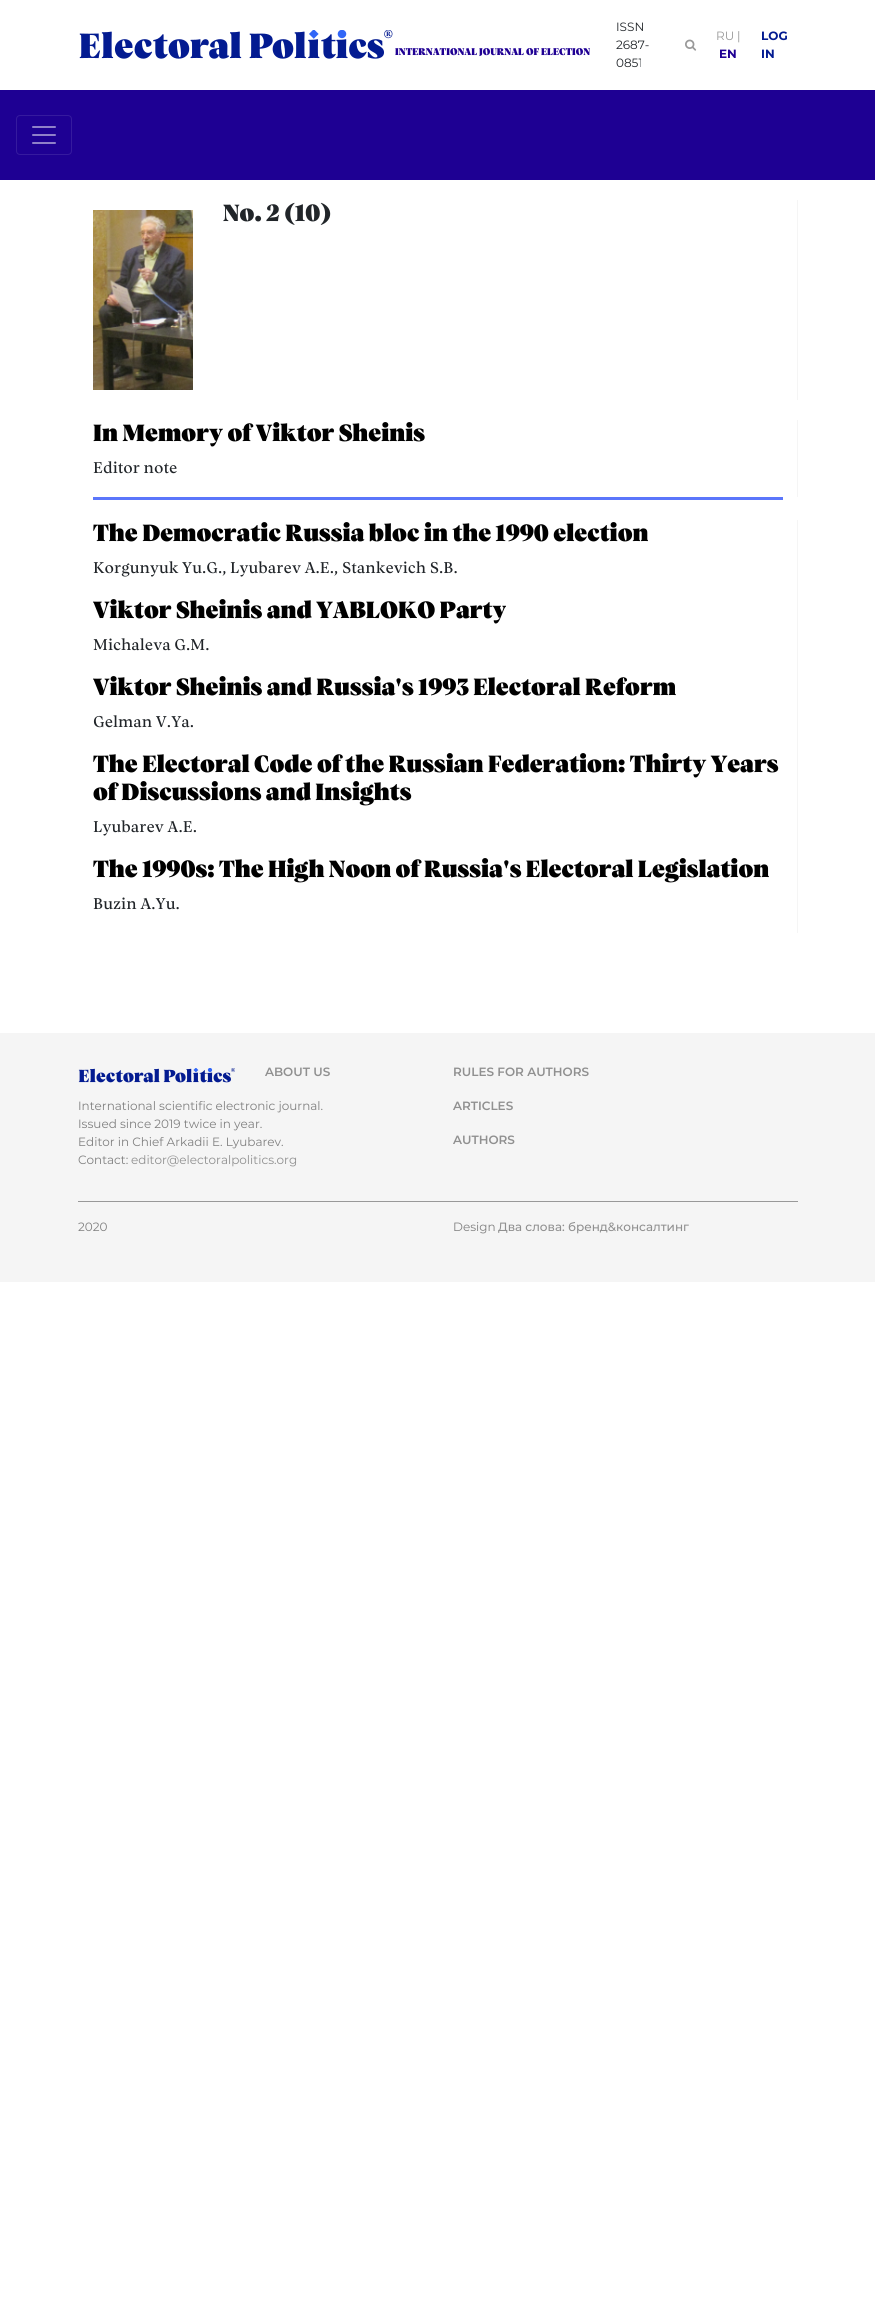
import math
import cairo



def rounded_rect(context, x, y, w, h, r):
    context.new_sub_path()
    for i, (u, v) in enumerate([(x + w - r, y + h - r), (x + r, y + h - r), (x + r, y + r), (x + w - r, y + r)]):
        context.arc(u, v, r, i * math.pi / 2, (i + 1) * math.pi / 2)
    context.close_path()


def draw_image(context, path, x, y, w, h):
    context.save()
    context.set_source_surface(cairo.ImageSurface.create_from_png(path), x, y)
    context.rectangle(x, y, w, h)
    context.fill()
    context.restore()


def draw(context):
    context.set_source_rgb(1, 1, 1)
    context.paint()
    draw_image(context, "images/1.png", 79, 30, 314, 29)
    draw_image(context, "images/2.png", 685, 39, 12, 12)
    context.set_source_rgb(30 / 255, 0, 147 / 255)
    context.rectangle(0, 90, 875, 90)
    context.fill()
    rounded_rect(context, 16.5, 115.5, 55, 39, 3.5)
    context.set_source_rgb(53 / 255, 26 / 255, 158 / 255)
    context.set_line_width(1)
    context.stroke()
    draw_image(context, "images/3.png", 32, 126, 24, 18)
    context.set_source_rgb(245 / 255, 245 / 255, 245 / 255)
    context.rectangle(797, 200, 1, 200)
    context.fill()
    draw_image(context, "images/4.png", 93, 210, 100, 180)
    context.rectangle(797, 420, 1, 77)
    context.fill()
    context.set_source_rgb(91 / 255, 118 / 255, 251 / 255)
    context.rectangle(93, 497, 690, 3)
    context.fill()
    context.set_source_rgb(245 / 255, 245 / 255, 245 / 255)
    context.rectangle(797, 520, 1, 413)
    context.fill()
    context.rectangle(0, 1033, 875, 249)
    context.fill()
    draw_image(context, "images/5.png", 78, 1068, 157, 15)
    context.set_source_rgb(153 / 255, 153 / 255, 153 / 255)
    context.rectangle(78, 1201, 720, 1)
    context.fill()
    context.select_font_face("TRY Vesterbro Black")
    context.set_font_size(10)
    context.set_source_rgb(31 / 255, 0, 147 / 255)
    context.move_to(395, 55)
    context.show_text("INTERNATIONAL JOURNAL OF ELECTION")
    context.select_font_face("Montserrat")
    context.set_font_size(12)
    context.set_source_rgb(33 / 255, 37 / 255, 41 / 255)
    context.move_to(616, 31)
    context.show_text("ISSN")
    context.move_to(616, 49)
    context.show_text("2687-")
    context.move_to(616, 67)
    context.show_text("0851")
    context.set_source_rgb(153 / 255, 153 / 255, 153 / 255)
    context.move_to(716, 40)
    context.show_text("RU")
    context.set_source_rgb(144 / 255, 144 / 255, 144 / 255)
    context.move_to(737, 40)
    context.show_text("|")
    context.select_font_face("Montserrat", cairo.FontSlant.NORMAL, cairo.FontWeight.BOLD)
    context.set_source_rgb(31 / 255, 0, 147 / 255)
    context.move_to(719, 58)
    context.show_text("EN")
    context.set_source_rgb(3 / 255, 27 / 255, 145 / 255)
    context.move_to(761, 40)
    context.show_text("LOG")
    context.move_to(761, 58)
    context.show_text("IN")
    context.select_font_face("TRY Vesterbro Black")
    context.set_font_size(24)
    context.set_source_rgb(33 / 255, 37 / 255, 41 / 255)
    context.move_to(223, 221)
    context.show_text("No. 2 (10)")
    context.set_source_rgb(0, 0, 0)
    context.move_to(93, 441)
    context.show_text("In Memory of Viktor Sheinis")
    context.select_font_face("TRY Vesterbro")
    context.set_font_size(16)
    context.set_source_rgb(33 / 255, 37 / 255, 41 / 255)
    context.move_to(93, 473)
    context.show_text("Editor note")
    context.select_font_face("TRY Vesterbro Black")
    context.set_font_size(24)
    context.set_source_rgb(0, 0, 0)
    context.move_to(93, 541)
    context.show_text("The Democratic Russia bloc in the 1990 election")
    context.select_font_face("TRY Vesterbro")
    context.set_font_size(16)
    context.set_source_rgb(33 / 255, 37 / 255, 41 / 255)
    context.move_to(93, 573)
    context.show_text("Korgunyuk Yu.G., Lyubarev A.E., Stankevich S.B.")
    context.select_font_face("TRY Vesterbro Black")
    context.set_font_size(24)
    context.set_source_rgb(0, 0, 0)
    context.move_to(93, 618)
    context.show_text("Viktor Sheinis and YABLOKO Party")
    context.select_font_face("TRY Vesterbro")
    context.set_font_size(16)
    context.set_source_rgb(33 / 255, 37 / 255, 41 / 255)
    context.move_to(93, 650)
    context.show_text("Michaleva G.M.")
    context.select_font_face("TRY Vesterbro Black")
    context.set_font_size(24)
    context.set_source_rgb(0, 0, 0)
    context.move_to(93, 695)
    context.show_text("Viktor Sheinis and Russia's 1993 Electoral Reform")
    context.select_font_face("TRY Vesterbro")
    context.set_font_size(16)
    context.set_source_rgb(33 / 255, 37 / 255, 41 / 255)
    context.move_to(93, 727)
    context.show_text("Gelman V.Ya.")
    context.select_font_face("TRY Vesterbro Black")
    context.set_font_size(24)
    context.set_source_rgb(0, 0, 0)
    context.move_to(93, 772)
    context.show_text("The Electoral Code of the Russian Federation: Thirty Years")
    context.move_to(93, 800)
    context.show_text("of Discussions and Insights")
    context.select_font_face("TRY Vesterbro")
    context.set_font_size(16)
    context.set_source_rgb(33 / 255, 37 / 255, 41 / 255)
    context.move_to(93, 832)
    context.show_text("Lyubarev A.E.")
    context.select_font_face("TRY Vesterbro Black")
    context.set_font_size(24)
    context.set_source_rgb(0, 0, 0)
    context.move_to(93, 877)
    context.show_text("The 1990s: The High Noon of Russia's Electoral Legislation")
    context.select_font_face("TRY Vesterbro")
    context.set_font_size(16)
    context.set_source_rgb(33 / 255, 37 / 255, 41 / 255)
    context.move_to(93, 909)
    context.show_text("Buzin A.Yu.")
    context.select_font_face("Montserrat SemiBold")
    context.set_font_size(12)
    context.set_source_rgb(144 / 255, 144 / 255, 144 / 255)
    context.move_to(265, 1076)
    context.show_text("ABOUT US")
    context.select_font_face("Montserrat")
    context.set_source_rgb(128 / 255, 128 / 255, 128 / 255)
    context.move_to(78, 1110)
    context.show_text("International scientific electronic journal.")
    context.move_to(78, 1128)
    context.show_text("Issued since 2019 twice in year.")
    context.move_to(78, 1146)
    context.show_text("Editor in Chief Arkadii E. Lyubarev.")
    context.move_to(78, 1164)
    context.show_text("Contact:")
    context.set_source_rgb(144 / 255, 144 / 255, 144 / 255)
    context.move_to(131, 1164)
    context.show_text("editor@electoralpolitics.org")
    context.select_font_face("Montserrat SemiBold")
    context.move_to(453, 1076)
    context.show_text("RULES FOR AUTHORS")
    context.move_to(453, 1110)
    context.show_text("ARTICLES")
    context.move_to(453, 1144)
    context.show_text("AUTHORS")
    context.select_font_face("Montserrat")
    context.set_source_rgb(128 / 255, 128 / 255, 128 / 255)
    context.move_to(78, 1231)
    context.show_text("2020")
    context.move_to(453, 1231)
    context.show_text("Design")
    context.select_font_face("Montserrat Medium")
    context.set_source_rgb(144 / 255, 144 / 255, 144 / 255)
    context.move_to(498, 1231)
    context.show_text("Два слова: бренд&консалтинг")


surface = cairo.ImageSurface(cairo.Format.RGB24, 875, 2316)
context = cairo.Context(surface)
options = cairo.FontOptions()
options.set_hint_metrics(cairo.HintMetrics.OFF)
options.set_hint_style(cairo.HintStyle.NONE)
context.set_font_options(options)
context.set_miter_limit(4)
draw(context)
surface.write_to_png("out.png")
